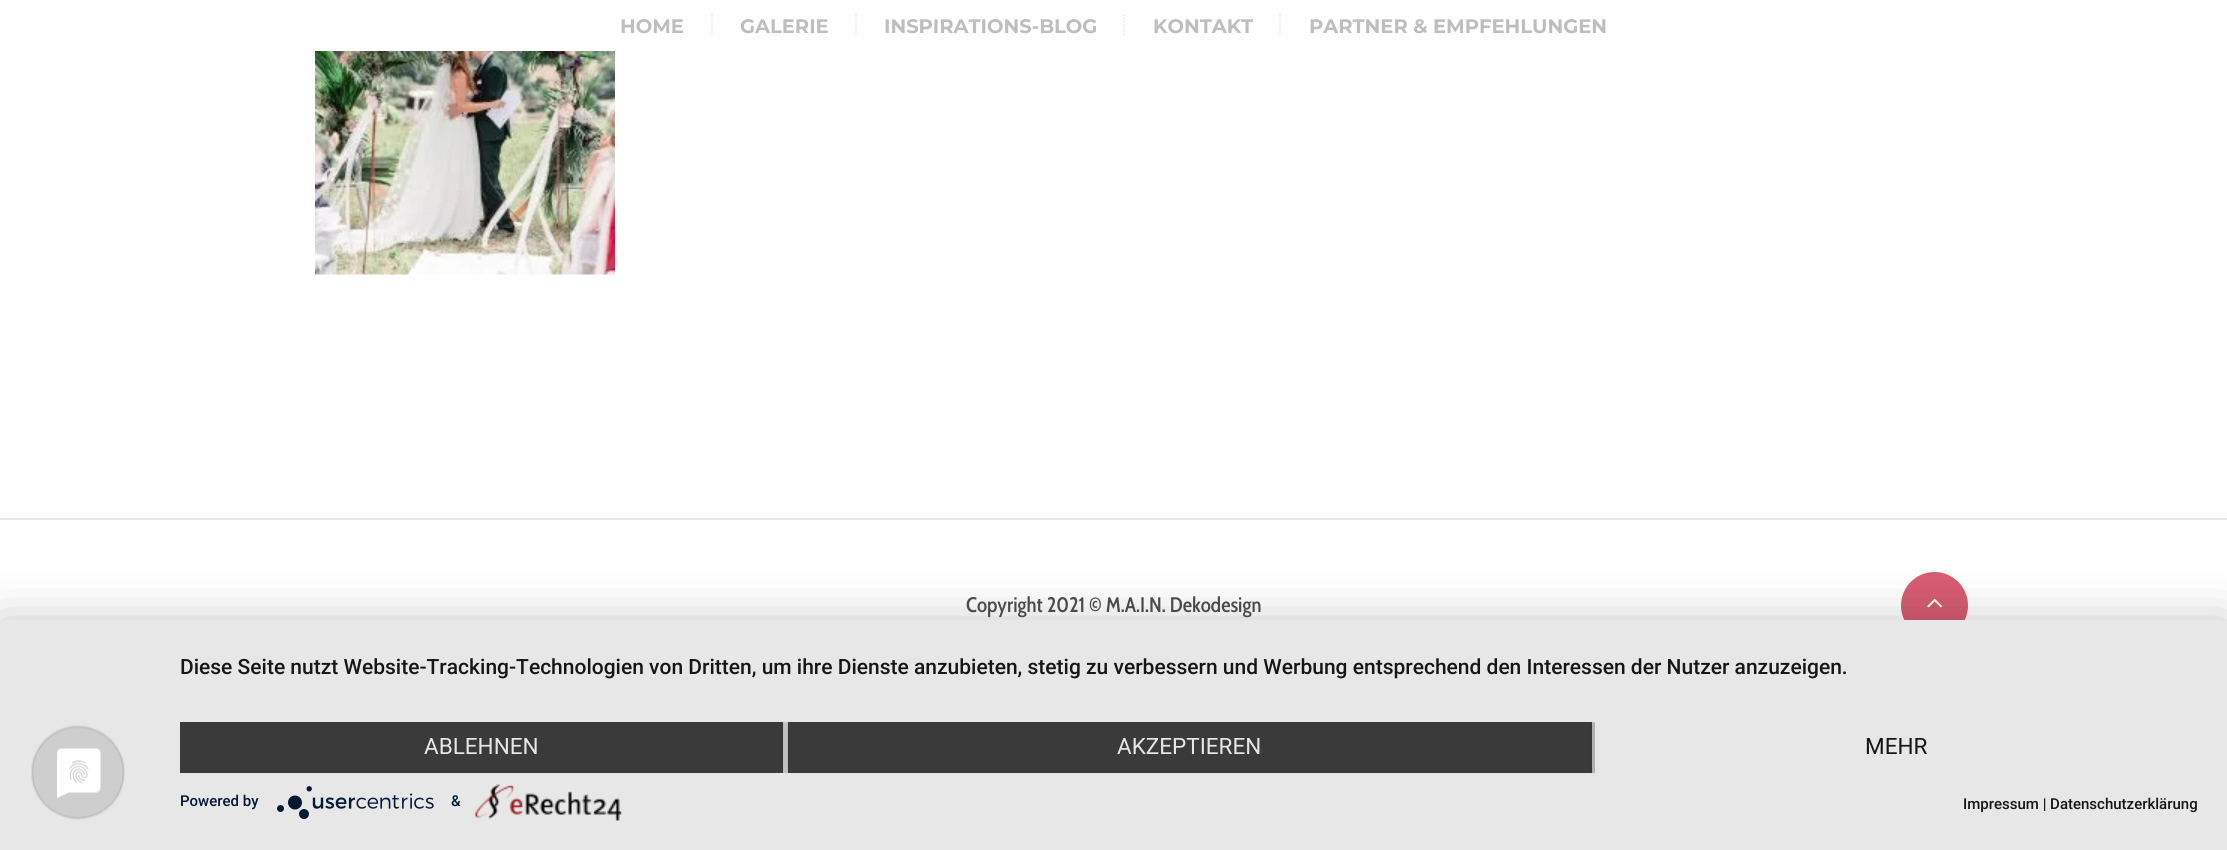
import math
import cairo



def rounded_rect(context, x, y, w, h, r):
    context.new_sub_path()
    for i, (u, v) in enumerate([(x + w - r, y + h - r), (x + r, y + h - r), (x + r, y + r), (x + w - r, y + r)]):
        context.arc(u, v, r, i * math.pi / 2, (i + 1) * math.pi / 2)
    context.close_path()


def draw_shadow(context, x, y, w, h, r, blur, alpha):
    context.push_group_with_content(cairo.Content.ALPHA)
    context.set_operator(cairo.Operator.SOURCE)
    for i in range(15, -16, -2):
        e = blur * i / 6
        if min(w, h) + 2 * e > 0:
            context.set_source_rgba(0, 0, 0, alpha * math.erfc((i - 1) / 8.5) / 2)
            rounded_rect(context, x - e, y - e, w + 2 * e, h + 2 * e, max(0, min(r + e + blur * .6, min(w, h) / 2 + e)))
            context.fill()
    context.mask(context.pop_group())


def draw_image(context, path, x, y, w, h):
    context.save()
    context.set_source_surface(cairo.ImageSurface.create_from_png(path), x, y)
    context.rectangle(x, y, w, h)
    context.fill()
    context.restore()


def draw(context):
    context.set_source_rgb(1, 1, 1)
    context.paint()
    context.new_path()
    context.move_to(712, 15)
    context.line_to(712, 36)
    context.set_source_rgb(229 / 255, 229 / 255, 229 / 255)
    context.set_line_width(1.5)
    context.set_dash([1.5, 1.5])
    context.stroke()
    context.new_path()
    context.move_to(856, 15)
    context.line_to(856, 36)
    context.stroke()
    context.new_path()
    context.move_to(1124, 15)
    context.line_to(1124, 36)
    context.stroke()
    context.new_path()
    context.move_to(1280, 15)
    context.line_to(1280, 36)
    context.stroke()
    draw_image(context, "images/1.png", 315, 51, 300, 224)
    context.rectangle(0, 518, 2227, 2)
    context.fill()
    context.set_source_rgb(214 / 255, 92 / 255, 114 / 255)
    context.arc(1934.5, 605.5, 33.5, 0, 2 * math.pi)
    context.fill()
    draw_image(context, "images/2.png", 1927, 598, 16, 10)
    context.set_source_rgb(0, 0, 0)
    draw_shadow(context, 0, 629, 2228, 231, 0, 27, 0.3)
    context.set_source_rgb(231 / 255, 231 / 255, 231 / 255)
    context.rectangle(0, 620, 2227, 230)
    context.fill()
    draw_image(context, "images/3.png", 31, 725, 94, 95)
    context.save()
    context.rectangle(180, 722, 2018, 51)
    context.clip()
    context.set_source_rgb(0, 0, 0)
    draw_shadow(context, 180, 723, 603, 51, 0, 3, 0.4)
    context.restore()
    context.set_source_rgb(58 / 255, 58 / 255, 58 / 255)
    context.rectangle(180, 722, 603, 51)
    context.fill()
    context.save()
    context.rectangle(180, 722, 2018, 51)
    context.clip()
    context.set_source_rgb(0, 0, 0)
    draw_shadow(context, 788, 723, 804, 51, 0, 3, 0.4)
    context.restore()
    context.rectangle(788, 722, 804, 51)
    context.fill()
    context.save()
    context.rectangle(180, 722, 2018, 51)
    context.clip()
    context.set_source_rgb(0, 0, 0)
    draw_shadow(context, 1595, 723, 603, 51, 0, 3, 0.4)
    context.restore()
    context.set_source_rgb(231 / 255, 231 / 255, 231 / 255)
    context.rectangle(1595, 722, 603, 51)
    context.fill()
    draw_image(context, "images/4.png", 277, 786, 157, 33)
    draw_image(context, "images/5.png", 475, 784, 147, 37)
    context.select_font_face("Montserrat", cairo.FontSlant.NORMAL, cairo.FontWeight.BOLD)
    context.set_font_size(19.5)
    context.set_source_rgb(191 / 255, 189 / 255, 189 / 255)
    context.move_to(620, 33)
    context.show_text("HOME")
    context.move_to(740, 33)
    context.show_text("GALERIE")
    context.move_to(884, 33)
    context.show_text("INSPIRATIONS-BLOG")
    context.move_to(1153, 33)
    context.show_text("KONTAKT")
    context.move_to(1309, 33)
    context.show_text("PARTNER & EMPFEHLUNGEN")
    context.select_font_face("Cabin Condensed Medium")
    context.set_font_size(21)
    context.set_source_rgb(74 / 255, 74 / 255, 74 / 255)
    context.move_to(966, 612)
    context.show_text("Copyright 2021 © M.A.I.N. Dekodesign")
    context.select_font_face("Roboto Medium")
    context.set_source_rgb(22 / 255, 22 / 255, 22 / 255)
    context.move_to(180, 674)
    context.show_text("Diese Seite nutzt Website-Tracking-Technologien von Dritten, um ihre Dienste anzubieten, stetig zu verbessern und Werbung entsprechend den Interessen der Nutzer anzuzeigen.")
    context.select_font_face("Roboto")
    context.set_font_size(22.5)
    context.set_source_rgb(231 / 255, 231 / 255, 231 / 255)
    context.move_to(424, 754)
    context.show_text("ABLEHNEN")
    context.move_to(1117, 754)
    context.show_text("AKZEPTIEREN")
    context.set_source_rgb(22 / 255, 22 / 255, 22 / 255)
    context.move_to(1865, 754)
    context.show_text("MEHR")
    context.select_font_face("Roboto Medium")
    context.set_font_size(15)
    context.set_source_rgb(2 / 255, 24 / 255, 54 / 255)
    context.move_to(180, 806)
    context.show_text("Powered by")
    context.move_to(451, 806)
    context.show_text("&")
    context.set_source_rgb(22 / 255, 22 / 255, 22 / 255)
    context.move_to(1963, 809)
    context.show_text("Impressum | Datenschutzerklärung")


surface = cairo.ImageSurface(cairo.Format.RGB24, 2227, 850)
context = cairo.Context(surface)
options = cairo.FontOptions()
options.set_hint_metrics(cairo.HintMetrics.OFF)
options.set_hint_style(cairo.HintStyle.NONE)
context.set_font_options(options)
context.set_miter_limit(4)
draw(context)
surface.write_to_png("out.png")
